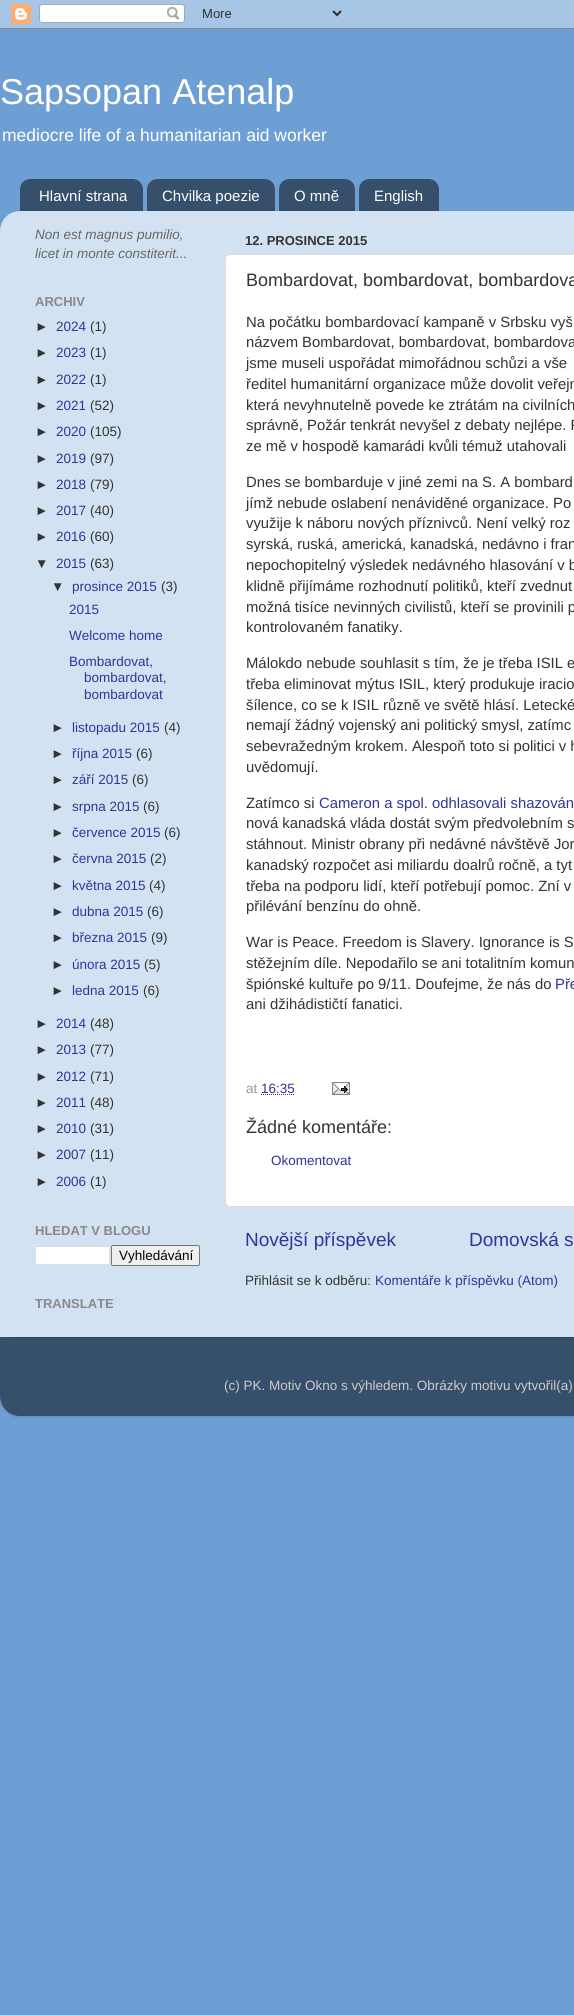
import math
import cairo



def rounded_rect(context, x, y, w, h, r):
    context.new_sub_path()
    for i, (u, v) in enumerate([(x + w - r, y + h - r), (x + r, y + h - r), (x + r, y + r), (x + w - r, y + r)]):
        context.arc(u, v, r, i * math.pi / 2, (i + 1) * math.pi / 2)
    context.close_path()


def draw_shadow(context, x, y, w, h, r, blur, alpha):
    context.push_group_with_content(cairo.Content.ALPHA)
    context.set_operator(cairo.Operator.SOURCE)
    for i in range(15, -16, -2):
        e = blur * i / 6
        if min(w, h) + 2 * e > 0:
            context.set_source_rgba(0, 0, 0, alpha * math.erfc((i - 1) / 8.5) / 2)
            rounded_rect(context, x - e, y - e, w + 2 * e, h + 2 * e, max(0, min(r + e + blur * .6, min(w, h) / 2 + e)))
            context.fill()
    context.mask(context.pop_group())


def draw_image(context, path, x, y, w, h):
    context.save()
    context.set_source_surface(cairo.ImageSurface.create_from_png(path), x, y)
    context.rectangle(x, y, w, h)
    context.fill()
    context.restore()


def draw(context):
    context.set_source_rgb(109 / 255, 159 / 255, 212 / 255)
    context.paint()
    draw_image(context, "images/1.png", 0, 0, 574, 29)
    draw_image(context, "images/2.png", 20, 179, 123, 32)
    draw_image(context, "images/3.png", 147, 179, 128, 32)
    draw_image(context, "images/4.png", 279, 179, 76, 32)
    draw_image(context, "images/5.png", 359, 179, 80, 32)
    context.save()
    context.set_fill_rule(cairo.FillRule.EVEN_ODD)
    context.new_path()
    context.move_to(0, 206)
    context.line_to(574, 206)
    context.line_to(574, 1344)
    context.line_to(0, 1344)
    context.close_path()
    context.move_to(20, 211)
    context.line_to(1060, 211)
    context.curve_to(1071, 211, 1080, 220, 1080, 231)
    context.line_to(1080, 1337)
    context.line_to(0, 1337)
    context.line_to(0, 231)
    context.curve_to(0, 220, 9, 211, 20, 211)
    context.close_path()
    context.clip()
    context.set_source_rgb(0, 0, 0)
    draw_shadow(context, 0, 212, 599, 1126, 20, 1.5, 0.15)
    context.restore()
    draw_image(context, "images/6.png", 0, 211, 574, 1126)
    context.set_source_rgb(1, 1, 1)
    context.rectangle(35.5, 1246.5, 74, 18)
    context.fill_preserve()
    context.set_source_rgb(221 / 255, 221 / 255, 221 / 255)
    context.set_line_width(1)
    context.stroke()
    context.set_source_rgb(239 / 255, 239 / 255, 239 / 255)
    rounded_rect(context, 111.5, 1245.5, 88, 20, 1.5)
    context.fill_preserve()
    context.set_source_rgb(118 / 255, 118 / 255, 118 / 255)
    context.stroke()
    context.set_source_rgb(1, 1, 1)
    rounded_rect(context, 225.5, 254.5, 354, 952, 4.5)
    context.fill_preserve()
    context.set_source_rgb(221 / 255, 221 / 255, 221 / 255)
    context.stroke()
    context.new_path()
    context.move_to(261, 1094.5)
    context.line_to(295, 1094.5)
    context.set_source_rgb(51 / 255, 51 / 255, 153 / 255)
    context.set_dash([1, 1])
    context.stroke()
    draw_image(context, "images/7.png", 332, 1082, 18, 13)
    context.save()
    context.set_fill_rule(cairo.FillRule.EVEN_ODD)
    context.new_path()
    context.move_to(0, 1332)
    context.line_to(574, 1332)
    context.line_to(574, 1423)
    context.line_to(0, 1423)
    context.close_path()
    context.move_to(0, 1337)
    context.line_to(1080, 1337)
    context.line_to(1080, 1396)
    context.curve_to(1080, 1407, 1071, 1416, 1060, 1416)
    context.line_to(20, 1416)
    context.curve_to(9, 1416, 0, 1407, 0, 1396)
    context.close_path()
    context.clip()
    context.set_source_rgb(0, 0, 0)
    draw_shadow(context, 0, 1338, 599, 79, 20, 1.5, 0.15)
    context.restore()
    draw_image(context, "images/8.png", 0, 1337, 574, 79)
    context.select_font_face("Liberation Sans")
    context.set_font_size(36)
    context.set_source_rgb(1, 1, 1)
    context.move_to(0, 104)
    context.show_text("Sapsopan Atenalp")
    context.set_font_size(17.5)
    context.move_to(2, 141)
    context.show_text("mediocre life of a humanitarian aid worker")
    context.set_font_size(15)
    context.move_to(39, 201)
    context.show_text("Hlavní strana")
    context.move_to(162, 201)
    context.show_text("Chvilka poezie")
    context.move_to(294, 201)
    context.show_text("O mně")
    context.move_to(374, 201)
    context.show_text("English")
    context.select_font_face("Liberation Sans", cairo.FontSlant.ITALIC)
    context.set_font_size(13.5)
    context.set_source_rgb(102 / 255, 102 / 255, 102 / 255)
    context.move_to(35, 239)
    context.show_text("Non est magnus pumilio,")
    context.move_to(35, 258)
    context.show_text("licet in monte constiterit...")
    context.select_font_face("Liberation Sans", cairo.FontSlant.NORMAL, cairo.FontWeight.BOLD)
    context.set_font_size(13)
    context.set_source_rgb(136 / 255, 136 / 255, 136 / 255)
    context.move_to(35, 306)
    context.show_text("ARCHIV")
    context.select_font_face("Liberation Sans")
    context.set_font_size(13.5)
    context.set_source_rgb(51 / 255, 51 / 255, 51 / 255)
    context.move_to(35, 331)
    context.show_text("►")
    context.set_source_rgb(51 / 255, 51 / 255, 153 / 255)
    context.move_to(56, 331)
    context.show_text("2024")
    context.set_source_rgb(51 / 255, 51 / 255, 51 / 255)
    context.move_to(90, 331)
    context.show_text("(1)")
    context.move_to(35, 357)
    context.show_text("►")
    context.set_source_rgb(51 / 255, 51 / 255, 153 / 255)
    context.move_to(56, 357)
    context.show_text("2023")
    context.set_source_rgb(51 / 255, 51 / 255, 51 / 255)
    context.move_to(90, 357)
    context.show_text("(1)")
    context.move_to(35, 384)
    context.show_text("►")
    context.set_source_rgb(51 / 255, 51 / 255, 153 / 255)
    context.move_to(56, 384)
    context.show_text("2022")
    context.set_source_rgb(51 / 255, 51 / 255, 51 / 255)
    context.move_to(90, 384)
    context.show_text("(1)")
    context.move_to(35, 410)
    context.show_text("►")
    context.set_source_rgb(51 / 255, 51 / 255, 153 / 255)
    context.move_to(56, 410)
    context.show_text("2021")
    context.set_source_rgb(51 / 255, 51 / 255, 51 / 255)
    context.move_to(90, 410)
    context.show_text("(52)")
    context.move_to(35, 436)
    context.show_text("►")
    context.set_source_rgb(51 / 255, 51 / 255, 153 / 255)
    context.move_to(56, 436)
    context.show_text("2020")
    context.set_source_rgb(51 / 255, 51 / 255, 51 / 255)
    context.move_to(90, 436)
    context.show_text("(105)")
    context.move_to(35, 463)
    context.show_text("►")
    context.set_source_rgb(51 / 255, 51 / 255, 153 / 255)
    context.move_to(56, 463)
    context.show_text("2019")
    context.set_source_rgb(51 / 255, 51 / 255, 51 / 255)
    context.move_to(90, 463)
    context.show_text("(97)")
    context.move_to(35, 489)
    context.show_text("►")
    context.set_source_rgb(51 / 255, 51 / 255, 153 / 255)
    context.move_to(56, 489)
    context.show_text("2018")
    context.set_source_rgb(51 / 255, 51 / 255, 51 / 255)
    context.move_to(90, 489)
    context.show_text("(79)")
    context.move_to(35, 515)
    context.show_text("►")
    context.set_source_rgb(51 / 255, 51 / 255, 153 / 255)
    context.move_to(56, 515)
    context.show_text("2017")
    context.set_source_rgb(51 / 255, 51 / 255, 51 / 255)
    context.move_to(90, 515)
    context.show_text("(40)")
    context.move_to(35, 541)
    context.show_text("►")
    context.set_source_rgb(51 / 255, 51 / 255, 153 / 255)
    context.move_to(56, 541)
    context.show_text("2016")
    context.set_source_rgb(51 / 255, 51 / 255, 51 / 255)
    context.move_to(90, 541)
    context.show_text("(60)")
    context.move_to(35, 568)
    context.show_text("▼")
    context.set_source_rgb(51 / 255, 51 / 255, 153 / 255)
    context.move_to(56, 568)
    context.show_text("2015")
    context.set_source_rgb(51 / 255, 51 / 255, 51 / 255)
    context.move_to(90, 568)
    context.show_text("(63)")
    context.move_to(51, 591)
    context.show_text("▼")
    context.set_source_rgb(51 / 255, 51 / 255, 153 / 255)
    context.move_to(72, 591)
    context.show_text("prosince 2015")
    context.set_source_rgb(51 / 255, 51 / 255, 51 / 255)
    context.move_to(161, 591)
    context.show_text("(3)")
    context.set_source_rgb(51 / 255, 51 / 255, 153 / 255)
    context.move_to(69, 614)
    context.show_text("2015")
    context.move_to(69, 640)
    context.show_text("Welcome home")
    context.move_to(69, 666)
    context.show_text("Bombardovat,")
    context.move_to(84, 682)
    context.show_text("bombardovat,")
    context.move_to(84, 699)
    context.show_text("bombardovat")
    context.set_source_rgb(51 / 255, 51 / 255, 51 / 255)
    context.move_to(51, 732)
    context.show_text("►")
    context.set_source_rgb(51 / 255, 51 / 255, 153 / 255)
    context.move_to(72, 732)
    context.show_text("listopadu 2015")
    context.set_source_rgb(51 / 255, 51 / 255, 51 / 255)
    context.move_to(164, 732)
    context.show_text("(4)")
    context.move_to(51, 758)
    context.show_text("►")
    context.set_source_rgb(51 / 255, 51 / 255, 153 / 255)
    context.move_to(72, 758)
    context.show_text("října 2015")
    context.set_source_rgb(51 / 255, 51 / 255, 51 / 255)
    context.move_to(136, 758)
    context.show_text("(6)")
    context.move_to(51, 784)
    context.show_text("►")
    context.set_source_rgb(51 / 255, 51 / 255, 153 / 255)
    context.move_to(72, 784)
    context.show_text("září 2015")
    context.set_source_rgb(51 / 255, 51 / 255, 51 / 255)
    context.move_to(132, 784)
    context.show_text("(6)")
    context.move_to(51, 811)
    context.show_text("►")
    context.set_source_rgb(51 / 255, 51 / 255, 153 / 255)
    context.move_to(72, 811)
    context.show_text("srpna 2015")
    context.set_source_rgb(51 / 255, 51 / 255, 51 / 255)
    context.move_to(143, 811)
    context.show_text("(6)")
    context.move_to(51, 837)
    context.show_text("►")
    context.set_source_rgb(51 / 255, 51 / 255, 153 / 255)
    context.move_to(72, 837)
    context.show_text("července 2015")
    context.set_source_rgb(51 / 255, 51 / 255, 51 / 255)
    context.move_to(164, 837)
    context.show_text("(6)")
    context.move_to(51, 863)
    context.show_text("►")
    context.set_source_rgb(51 / 255, 51 / 255, 153 / 255)
    context.move_to(72, 863)
    context.show_text("června 2015")
    context.set_source_rgb(51 / 255, 51 / 255, 51 / 255)
    context.move_to(150, 863)
    context.show_text("(2)")
    context.move_to(51, 890)
    context.show_text("►")
    context.set_source_rgb(51 / 255, 51 / 255, 153 / 255)
    context.move_to(72, 890)
    context.show_text("května 2015")
    context.set_source_rgb(51 / 255, 51 / 255, 51 / 255)
    context.move_to(149, 890)
    context.show_text("(4)")
    context.move_to(51, 916)
    context.show_text("►")
    context.set_source_rgb(51 / 255, 51 / 255, 153 / 255)
    context.move_to(72, 916)
    context.show_text("dubna 2015")
    context.set_source_rgb(51 / 255, 51 / 255, 51 / 255)
    context.move_to(147, 916)
    context.show_text("(6)")
    context.move_to(51, 942)
    context.show_text("►")
    context.set_source_rgb(51 / 255, 51 / 255, 153 / 255)
    context.move_to(72, 942)
    context.show_text("března 2015")
    context.set_source_rgb(51 / 255, 51 / 255, 51 / 255)
    context.move_to(151, 942)
    context.show_text("(9)")
    context.move_to(51, 969)
    context.show_text("►")
    context.set_source_rgb(51 / 255, 51 / 255, 153 / 255)
    context.move_to(72, 969)
    context.show_text("února 2015")
    context.set_source_rgb(51 / 255, 51 / 255, 51 / 255)
    context.move_to(144, 969)
    context.show_text("(5)")
    context.move_to(51, 995)
    context.show_text("►")
    context.set_source_rgb(51 / 255, 51 / 255, 153 / 255)
    context.move_to(72, 995)
    context.show_text("ledna 2015")
    context.set_source_rgb(51 / 255, 51 / 255, 51 / 255)
    context.move_to(143, 995)
    context.show_text("(6)")
    context.move_to(35, 1028)
    context.show_text("►")
    context.set_source_rgb(51 / 255, 51 / 255, 153 / 255)
    context.move_to(56, 1028)
    context.show_text("2014")
    context.set_source_rgb(51 / 255, 51 / 255, 51 / 255)
    context.move_to(90, 1028)
    context.show_text("(48)")
    context.move_to(35, 1054)
    context.show_text("►")
    context.set_source_rgb(51 / 255, 51 / 255, 153 / 255)
    context.move_to(56, 1054)
    context.show_text("2013")
    context.set_source_rgb(51 / 255, 51 / 255, 51 / 255)
    context.move_to(90, 1054)
    context.show_text("(77)")
    context.move_to(35, 1081)
    context.show_text("►")
    context.set_source_rgb(51 / 255, 51 / 255, 153 / 255)
    context.move_to(56, 1081)
    context.show_text("2012")
    context.set_source_rgb(51 / 255, 51 / 255, 51 / 255)
    context.move_to(90, 1081)
    context.show_text("(71)")
    context.move_to(35, 1107)
    context.show_text("►")
    context.set_source_rgb(51 / 255, 51 / 255, 153 / 255)
    context.move_to(56, 1107)
    context.show_text("2011")
    context.set_source_rgb(51 / 255, 51 / 255, 51 / 255)
    context.move_to(90, 1107)
    context.show_text("(48)")
    context.move_to(35, 1133)
    context.show_text("►")
    context.set_source_rgb(51 / 255, 51 / 255, 153 / 255)
    context.move_to(56, 1133)
    context.show_text("2010")
    context.set_source_rgb(51 / 255, 51 / 255, 51 / 255)
    context.move_to(90, 1133)
    context.show_text("(31)")
    context.move_to(35, 1159)
    context.show_text("►")
    context.set_source_rgb(51 / 255, 51 / 255, 153 / 255)
    context.move_to(56, 1159)
    context.show_text("2007")
    context.set_source_rgb(51 / 255, 51 / 255, 51 / 255)
    context.move_to(90, 1159)
    context.show_text("(11)")
    context.move_to(35, 1186)
    context.show_text("►")
    context.set_source_rgb(51 / 255, 51 / 255, 153 / 255)
    context.move_to(56, 1186)
    context.show_text("2006")
    context.set_source_rgb(51 / 255, 51 / 255, 51 / 255)
    context.move_to(90, 1186)
    context.show_text("(1)")
    context.select_font_face("Liberation Sans", cairo.FontSlant.NORMAL, cairo.FontWeight.BOLD)
    context.set_font_size(13)
    context.set_source_rgb(136 / 255, 136 / 255, 136 / 255)
    context.move_to(35, 1235)
    context.show_text("HLEDAT V BLOGU")
    context.select_font_face("Liberation Sans")
    context.set_font_size(13.5)
    context.set_source_rgb(0, 0, 0)
    context.move_to(119, 1260)
    context.show_text("Vyhledávání")
    context.select_font_face("Liberation Sans", cairo.FontSlant.NORMAL, cairo.FontWeight.BOLD)
    context.set_font_size(13)
    context.set_source_rgb(136 / 255, 136 / 255, 136 / 255)
    context.move_to(35, 1308)
    context.show_text("TRANSLATE")
    context.set_source_rgb(51 / 255, 51 / 255, 51 / 255)
    context.move_to(245, 245)
    context.show_text("12. PROSINCE 2015")
    context.select_font_face("Liberation Sans")
    context.set_font_size(18)
    context.move_to(246, 286)
    context.show_text("Bombardovat, bombardovat, bombardova")
    context.set_font_size(14.85)
    context.move_to(246, 327)
    context.show_text("Na počátku bombardovací kampaně v Srbsku vyš")
    context.move_to(246, 347)
    context.show_text("názvem Bombardovat, bombardovat, bombardova")
    context.move_to(246, 368)
    context.show_text("jsme museli uspořádat mimořádnou schůzi a vše")
    context.move_to(246, 389)
    context.show_text("ředitel humanitární organizace může dovolit veřejn")
    context.move_to(246, 410)
    context.show_text("která nevyhnutelně povede ke ztrátám na civilních")
    context.move_to(246, 430)
    context.show_text("správně, Požár tenkrát nevyšel z debaty nejlépe. P")
    context.move_to(246, 451)
    context.show_text("ze mě v hospodě kamarádi kvůli témuž utahovali")
    context.move_to(246, 487)
    context.show_text("Dnes se bombarduje v jiné zemi na S. A bombard")
    context.move_to(246, 508)
    context.show_text("jímž nebude oslabení nenáviděné organizace. Po")
    context.move_to(246, 528)
    context.show_text("využije k náboru nových příznivců. Není velký roz")
    context.move_to(246, 549)
    context.show_text("syrská, ruská, americká, kanadská, nedávno i fran")
    context.move_to(246, 570)
    context.show_text("nepochopitelný výsledek nedávného hlasování v b")
    context.move_to(246, 591)
    context.show_text("klidně přijímáme rozhodnutí politiků, kteří zvednut")
    context.move_to(246, 612)
    context.show_text("možná tisíce nevinných civilistů, kteří se provinili p")
    context.move_to(246, 632)
    context.show_text("kontrolovaném fanatiky.")
    context.move_to(246, 668)
    context.show_text("Málokdo nebude souhlasit s tím, že je třeba ISIL e")
    context.move_to(246, 689)
    context.show_text("třeba eliminovat mýtus ISIL, který produkuje iracio")
    context.move_to(246, 710)
    context.show_text("šílence, co se k ISIL různě ve světě hlásí. Letecké")
    context.move_to(246, 730)
    context.show_text("nemají žádný vojenský ani politický smysl, zatímc")
    context.move_to(246, 751)
    context.show_text("sebevražedným krokem. Alespoň toto si politici v h")
    context.move_to(246, 772)
    context.show_text("uvědomují.")
    context.move_to(246, 808)
    context.show_text("Zatímco si")
    context.set_source_rgb(51 / 255, 51 / 255, 153 / 255)
    context.move_to(319, 808)
    context.show_text("Cameron a spol. odhlasovali shazován")
    context.set_source_rgb(51 / 255, 51 / 255, 51 / 255)
    context.move_to(246, 828)
    context.show_text("nová kanadská vláda dostát svým předvolebním s")
    context.move_to(246, 849)
    context.show_text("stáhnout. Ministr obrany při nedávné návštěvě Jor")
    context.move_to(246, 870)
    context.show_text("kanadský rozpočet asi miliardu doalrů ročně, a tyt")
    context.move_to(246, 891)
    context.show_text("třeba na podporu lidí, kteří potřebují pomoc. Zní v")
    context.move_to(246, 911)
    context.show_text("přilévání benzínu do ohně.")
    context.move_to(246, 947)
    context.show_text("War is Peace. Freedom is Slavery. Ignorance is S")
    context.move_to(246, 968)
    context.show_text("stěžejním díle. Nepodařilo se ani totalitním komun")
    context.move_to(246, 989)
    context.show_text("špiónské kultuře po 9/11. Doufejme, že nás do")
    context.set_source_rgb(51 / 255, 51 / 255, 153 / 255)
    context.move_to(555, 989)
    context.show_text("Pře")
    context.set_source_rgb(51 / 255, 51 / 255, 51 / 255)
    context.move_to(246, 1009)
    context.show_text("ani džihádističtí fanatici.")
    context.set_font_size(13.5)
    context.set_source_rgb(153 / 255, 153 / 255, 153 / 255)
    context.move_to(246, 1093)
    context.show_text("at")
    context.set_source_rgb(51 / 255, 51 / 255, 153 / 255)
    context.move_to(261, 1093)
    context.show_text("16:35")
    context.set_font_size(18)
    context.set_source_rgb(51 / 255, 51 / 255, 51 / 255)
    context.move_to(246, 1133)
    context.show_text("Žádné komentáře:")
    context.set_font_size(13.5)
    context.set_source_rgb(51 / 255, 51 / 255, 153 / 255)
    context.move_to(271, 1165)
    context.show_text("Okomentovat")
    context.set_font_size(19)
    context.move_to(245, 1246)
    context.show_text("Novější příspěvek")
    context.move_to(469, 1246)
    context.show_text("Domovská s")
    context.set_font_size(13.5)
    context.set_source_rgb(51 / 255, 51 / 255, 51 / 255)
    context.move_to(245, 1285)
    context.show_text("Přihlásit se k odběru:")
    context.set_source_rgb(51 / 255, 51 / 255, 153 / 255)
    context.move_to(375, 1285)
    context.show_text("Komentáře k příspěvku (Atom)")
    context.set_source_rgb(204 / 255, 204 / 255, 204 / 255)
    context.move_to(224, 1390)
    context.show_text("(c) PK. Motiv Okno s výhledem. Obrázky motivu vytvořil(a)")


surface = cairo.ImageSurface(cairo.Format.RGB24, 574, 2015)
context = cairo.Context(surface)
options = cairo.FontOptions()
options.set_hint_metrics(cairo.HintMetrics.OFF)
options.set_hint_style(cairo.HintStyle.NONE)
context.set_font_options(options)
context.set_miter_limit(4)
draw(context)
surface.write_to_png("out.png")
